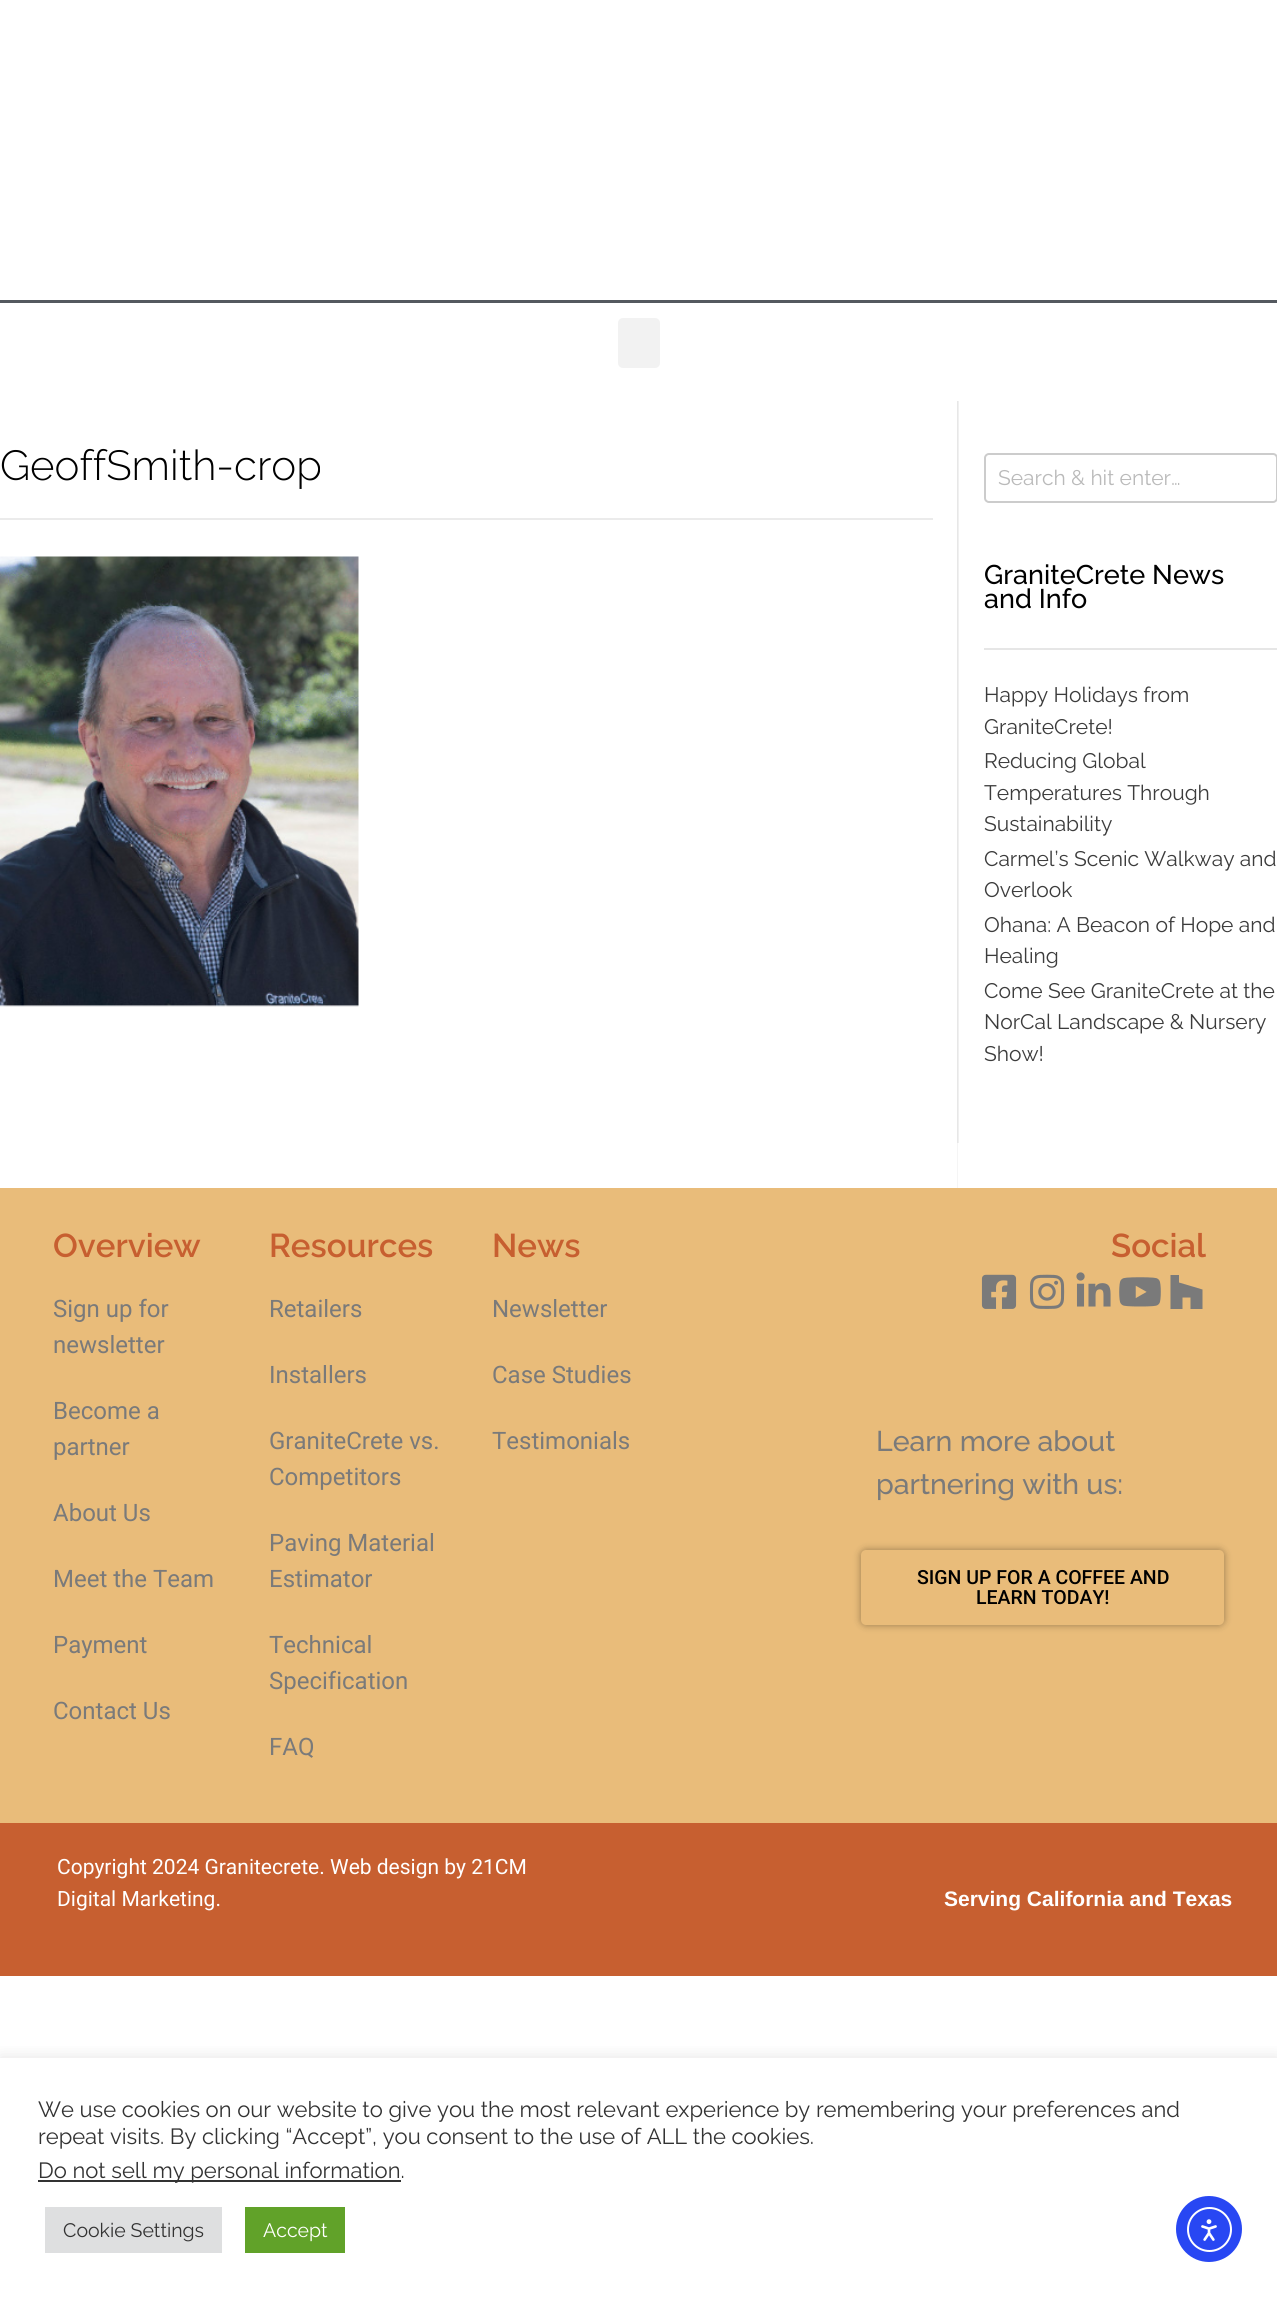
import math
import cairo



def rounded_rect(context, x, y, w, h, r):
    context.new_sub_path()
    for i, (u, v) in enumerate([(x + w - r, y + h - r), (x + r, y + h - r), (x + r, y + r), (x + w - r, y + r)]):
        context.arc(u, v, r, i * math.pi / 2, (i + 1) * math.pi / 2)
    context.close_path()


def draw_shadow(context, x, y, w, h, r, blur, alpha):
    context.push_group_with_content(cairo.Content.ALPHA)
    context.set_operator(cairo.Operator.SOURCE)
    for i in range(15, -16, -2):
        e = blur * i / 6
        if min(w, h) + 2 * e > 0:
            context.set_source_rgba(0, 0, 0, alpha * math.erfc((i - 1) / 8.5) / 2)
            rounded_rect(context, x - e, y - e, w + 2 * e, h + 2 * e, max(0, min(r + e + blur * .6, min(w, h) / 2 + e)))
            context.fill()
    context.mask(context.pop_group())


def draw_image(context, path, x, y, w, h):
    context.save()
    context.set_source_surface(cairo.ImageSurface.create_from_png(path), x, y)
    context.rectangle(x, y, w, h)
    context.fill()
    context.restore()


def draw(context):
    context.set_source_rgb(1, 1, 1)
    context.paint()
    context.set_source_rgb(84 / 255, 89 / 255, 95 / 255)
    context.rectangle(0, 300, 1277, 3)
    context.fill()
    context.set_source_rgb(242 / 255, 242 / 255, 242 / 255)
    rounded_rect(context, 618, 318, 42, 50, 5)
    context.fill()
    context.set_source_rgb(245 / 255, 245 / 255, 245 / 255)
    context.new_path()
    context.move_to(957, 401)
    context.line_to(957, 1190)
    context.line_to(1277, 1190)
    context.line_to(958, 1190)
    context.line_to(958, 401)
    context.close_path()
    context.fill()
    context.set_source_rgba(0, 0, 0, 0.06)
    context.rectangle(957, 401, 2, 742)
    context.fill()
    context.set_source_rgb(235 / 255, 235 / 255, 235 / 255)
    context.rectangle(0, 518, 933, 2)
    context.fill()
    draw_image(context, "images/1.png", 0, 556, 359, 451)
    rounded_rect(context, 985, 454, 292, 48, 4)
    context.set_source_rgb(204 / 255, 204 / 255, 204 / 255)
    context.stroke()
    context.set_source_rgb(230 / 255, 230 / 255, 230 / 255)
    context.rectangle(984, 648, 293, 2)
    context.fill()
    context.set_source_rgb(233 / 255, 188 / 255, 122 / 255)
    context.rectangle(0, 1188, 1277, 635)
    context.fill()
    draw_image(context, "images/2.png", 981, 1274, 36, 35)
    draw_image(context, "images/3.png", 1029, 1274, 36, 35)
    draw_image(context, "images/4.png", 1076, 1272, 35, 35)
    draw_image(context, "images/5.png", 1119, 1277, 42, 30)
    context.set_source_rgb(122 / 255, 122 / 255, 122 / 255)
    context.new_path()
    context.move_to(1190.5, 1297.5)
    context.line_to(1182.5, 1297.5)
    context.line_to(1182.5, 1309)
    context.line_to(1170.5, 1309)
    context.line_to(1170.5, 1275)
    context.line_to(1179, 1275)
    context.line_to(1179, 1282.5)
    context.line_to(1202.5, 1289.5)
    context.line_to(1202.5, 1309)
    context.line_to(1190.5, 1309)
    context.close_path()
    context.fill()
    context.set_source_rgb(0, 0, 0)
    draw_shadow(context, 861, 1550, 363, 75, 5, 4, 0.34)
    context.set_source_rgb(233 / 255, 188 / 255, 122 / 255)
    rounded_rect(context, 861, 1550, 363, 75, 5)
    context.fill()
    context.set_source_rgb(199 / 255, 95 / 255, 48 / 255)
    context.rectangle(0, 1823, 1277, 153)
    context.fill()
    context.save()
    context.rectangle(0, 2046, 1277, 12)
    context.clip()
    context.set_source_rgb(172 / 255, 171 / 255, 171 / 255)
    draw_shadow(context, 0, 2057, 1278, 240, 0, 7.5, 0.3)
    context.restore()
    context.set_source_rgb(51 / 255, 51 / 255, 51 / 255)
    context.rectangle(38, 2180, 363, 2)
    context.fill()
    context.set_source_rgb(222 / 255, 223 / 255, 224 / 255)
    context.rectangle(45, 2207, 177, 46)
    context.fill()
    context.set_source_rgb(97 / 255, 162 / 255, 41 / 255)
    context.rectangle(245, 2207, 100, 46)
    context.fill()
    context.set_source_rgb(40 / 255, 71 / 255, 243 / 255)
    context.arc(1209, 2229, 33, 0, 2 * math.pi)
    context.fill()
    context.arc(1209.5, 2229.5, 21.5, 0, 2 * math.pi)
    context.set_source_rgb(1, 1, 1)
    context.stroke()
    draw_image(context, "images/6.png", 1201, 2219, 16, 22)
    context.select_font_face("Raleway Light")
    context.set_font_size(42)
    context.set_source_rgb(0, 0, 0)
    context.move_to(0, 480)
    context.show_text("GeoffSmith-crop")
    context.select_font_face("Raleway")
    context.set_font_size(21)
    context.set_source_rgb(186 / 255, 186 / 255, 186 / 255)
    context.move_to(998, 485)
    context.show_text("Search & hit enter…")
    context.select_font_face("Raleway Medium")
    context.set_font_size(27)
    context.set_source_rgb(0, 0, 0)
    context.move_to(984, 584)
    context.show_text("GraniteCrete News")
    context.move_to(984, 608)
    context.show_text("and Info")
    context.select_font_face("Raleway")
    context.set_font_size(21)
    context.set_source_rgb(60 / 255, 60 / 255, 60 / 255)
    context.move_to(984, 702)
    context.show_text("Happy Holidays from")
    context.move_to(984, 734)
    context.show_text("GraniteCrete!")
    context.move_to(984, 768)
    context.show_text("Reducing Global")
    context.move_to(984, 800)
    context.show_text("Temperatures Through")
    context.move_to(984, 831)
    context.show_text("Sustainability")
    context.move_to(984, 866)
    context.show_text("Carmel’s Scenic Walkway and")
    context.move_to(984, 897)
    context.show_text("Overlook")
    context.move_to(984, 932)
    context.show_text("Ohana: A Beacon of Hope and")
    context.move_to(984, 963)
    context.show_text("Healing")
    context.move_to(984, 998)
    context.show_text("Come See GraniteCrete at the")
    context.move_to(984, 1029)
    context.show_text("NorCal Landscape & Nursery")
    context.move_to(984, 1061)
    context.show_text("Show!")
    context.select_font_face("Raleway SemiBold")
    context.set_font_size(33)
    context.set_source_rgb(199 / 255, 95 / 255, 48 / 255)
    context.move_to(53, 1257)
    context.show_text("Overview")
    context.select_font_face("Roboto")
    context.set_font_size(24)
    context.set_source_rgb(122 / 255, 122 / 255, 122 / 255)
    context.move_to(53, 1317)
    context.show_text("Sign up for")
    context.move_to(53, 1353)
    context.show_text("newsletter")
    context.move_to(53, 1419)
    context.show_text("Become a")
    context.move_to(53, 1455)
    context.show_text("partner")
    context.move_to(53, 1521)
    context.show_text("About Us")
    context.move_to(53, 1587)
    context.show_text("Meet the Team")
    context.move_to(53, 1653)
    context.show_text("Payment")
    context.move_to(53, 1719)
    context.show_text("Contact Us")
    context.select_font_face("Raleway SemiBold")
    context.set_font_size(33)
    context.set_source_rgb(199 / 255, 95 / 255, 48 / 255)
    context.move_to(269, 1257)
    context.show_text("Resources")
    context.select_font_face("Roboto")
    context.set_font_size(24)
    context.set_source_rgb(122 / 255, 122 / 255, 122 / 255)
    context.move_to(269, 1317)
    context.show_text("Retailers")
    context.move_to(269, 1383)
    context.show_text("Installers")
    context.move_to(269, 1449)
    context.show_text("GraniteCrete vs.")
    context.move_to(269, 1485)
    context.show_text("Competitors")
    context.move_to(269, 1551)
    context.show_text("Paving Material")
    context.move_to(269, 1587)
    context.show_text("Estimator")
    context.move_to(269, 1653)
    context.show_text("Technical")
    context.move_to(269, 1689)
    context.show_text("Specification")
    context.move_to(269, 1755)
    context.show_text("FAQ")
    context.select_font_face("Raleway SemiBold")
    context.set_font_size(33)
    context.set_source_rgb(199 / 255, 95 / 255, 48 / 255)
    context.move_to(492, 1257)
    context.show_text("News")
    context.select_font_face("Roboto")
    context.set_font_size(24)
    context.set_source_rgb(122 / 255, 122 / 255, 122 / 255)
    context.move_to(492, 1317)
    context.show_text("Newsletter")
    context.move_to(492, 1383)
    context.show_text("Case Studies")
    context.move_to(492, 1449)
    context.show_text("Testimonials")
    context.select_font_face("Raleway SemiBold")
    context.set_font_size(33)
    context.set_source_rgb(199 / 255, 95 / 255, 48 / 255)
    context.move_to(1111, 1257)
    context.show_text("Social")
    context.select_font_face("Raleway Medium")
    context.set_font_size(28.5)
    context.set_source_rgb(122 / 255, 122 / 255, 122 / 255)
    context.move_to(876, 1451)
    context.show_text("Learn more about")
    context.move_to(876, 1494)
    context.show_text("partnering with us:")
    context.select_font_face("Roboto Medium")
    context.set_font_size(19.5)
    context.set_source_rgb(0, 0, 0)
    context.move_to(917, 1584)
    context.show_text("SIGN UP FOR A COFFEE AND")
    context.move_to(976, 1604)
    context.show_text("LEARN TODAY!")
    context.select_font_face("Roboto")
    context.set_font_size(21)
    context.set_source_rgb(1, 1, 1)
    context.move_to(57, 1874)
    context.show_text("Copyright 2024 Granitecrete. Web design by 21CM")
    context.move_to(57, 1906)
    context.show_text("Digital Marketing.")
    context.select_font_face("Liberation Sans", cairo.FontSlant.NORMAL, cairo.FontWeight.BOLD)
    context.move_to(944, 1906)
    context.show_text("Serving California and Texas")
    context.select_font_face("Raleway")
    context.set_font_size(22)
    context.set_source_rgb(51 / 255, 51 / 255, 51 / 255)
    context.move_to(38, 2117)
    context.show_text("We use cookies on our website to give you the most relevant experience by remembering your preferences and")
    context.move_to(38, 2144)
    context.show_text("repeat visits. By clicking “Accept”, you consent to the use of ALL the cookies.")
    context.move_to(38, 2178)
    context.show_text("Do not sell my personal information.")
    context.set_font_size(19.5)
    context.move_to(63, 2237)
    context.show_text("Cookie Settings")
    context.set_source_rgb(1, 1, 1)
    context.move_to(263, 2237)
    context.show_text("Accept")


surface = cairo.ImageSurface(cairo.Format.RGB24, 1277, 2297)
context = cairo.Context(surface)
options = cairo.FontOptions()
options.set_hint_metrics(cairo.HintMetrics.OFF)
options.set_hint_style(cairo.HintStyle.NONE)
context.set_font_options(options)
context.set_miter_limit(4)
draw(context)
surface.write_to_png("out.png")
